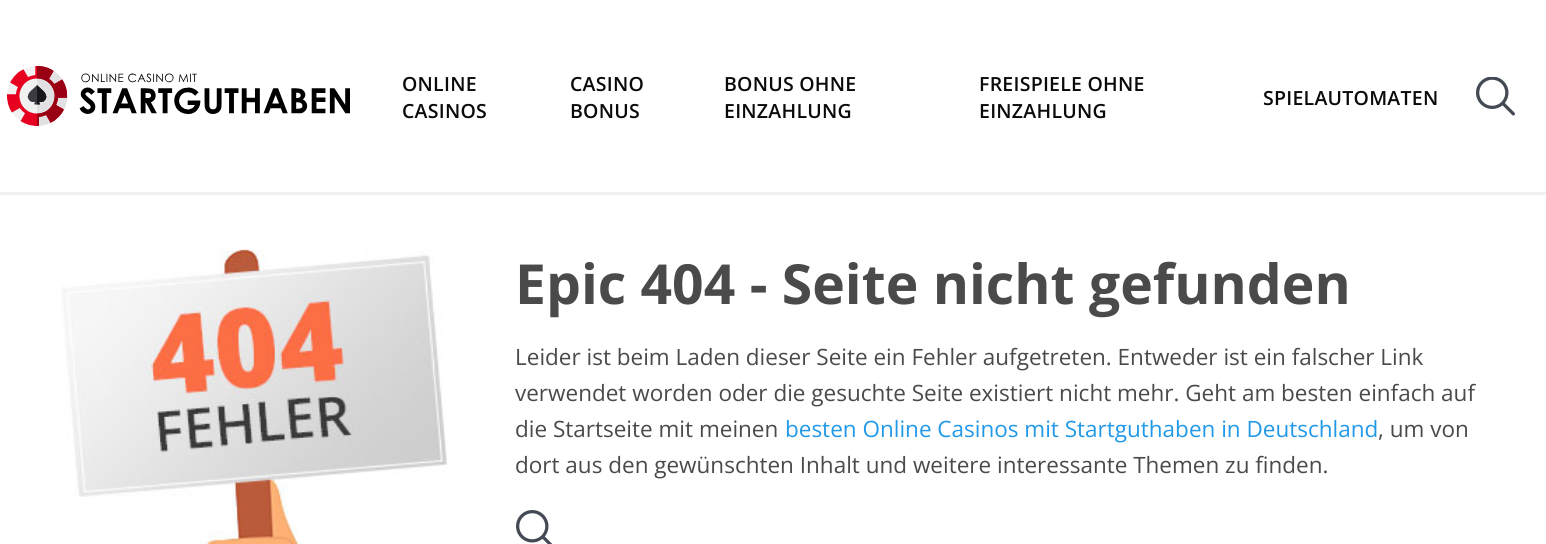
import math
import cairo



def draw_spaced(context, x, y, s, letter, word):
    context.move_to(x, y)
    for ch in s:
        context.show_text(ch)
        context.rel_move_to(letter + word * (ch == ' '), 0)


def draw_image(context, path, x, y, w, h):
    context.save()
    context.set_source_surface(cairo.ImageSurface.create_from_png(path), x, y)
    context.rectangle(x, y, w, h)
    context.fill()
    context.restore()


def draw(context):
    context.set_source_rgb(1, 1, 1)
    context.paint()
    draw_image(context, "images/1.png", 7, 66, 343, 60)
    draw_image(context, "images/2.png", 1476, 77, 39, 39)
    context.set_source_rgb(241 / 255, 241 / 255, 241 / 255)
    context.rectangle(0, 192, 1546, 3)
    context.fill()
    draw_image(context, "images/3.png", 61, 249, 387, 295)
    draw_image(context, "images/4.png", 516, 510, 37, 34)
    context.select_font_face("Open Sans SemiBold")
    context.set_font_size(19.5)
    context.set_source_rgb(10 / 255, 10 / 255, 10 / 255)
    draw_spaced(context, 402, 91, "ONLINE", 0.25, 0)
    draw_spaced(context, 402, 118, "CASINOS", 0.25, 0)
    draw_spaced(context, 570, 91, "CASINO", 0.25, 0)
    draw_spaced(context, 570, 118, "BONUS", 0.25, 0)
    draw_spaced(context, 724, 91, "BONUS OHNE", 0.25, 0)
    draw_spaced(context, 724, 118, "EINZAHLUNG", 0.25, 0)
    draw_spaced(context, 979, 91, "FREISPIELE OHNE", 0.25, 0)
    draw_spaced(context, 979, 118, "EINZAHLUNG", 0.25, 0)
    draw_spaced(context, 1263, 105, "SPIELAUTOMATEN", 0.25, 0)
    context.select_font_face("Open Sans", cairo.FontSlant.NORMAL, cairo.FontWeight.BOLD)
    context.set_font_size(55.25)
    context.set_source_rgb(74 / 255, 74 / 255, 74 / 255)
    context.move_to(515, 304)
    context.show_text("Epic 404 - Seite nicht gefunden")
    context.select_font_face("Open Sans")
    context.set_font_size(22.5)
    context.move_to(515, 365)
    context.show_text("Leider ist beim Laden dieser Seite ein Fehler aufgetreten. Entweder ist ein falscher Link")
    context.move_to(515, 401)
    context.show_text("verwendet worden oder die gesuchte Seite existiert nicht mehr. Geht am besten einfach auf")
    context.move_to(515, 437)
    context.show_text("die Startseite mit meinen")
    context.set_source_rgb(33 / 255, 153 / 255, 232 / 255)
    context.move_to(785, 437)
    context.show_text("besten Online Casinos mit Startguthaben in Deutschland")
    context.set_source_rgb(74 / 255, 74 / 255, 74 / 255)
    context.move_to(1378, 437)
    context.show_text(", um von")
    context.move_to(515, 473)
    context.show_text("dort aus den gewünschten Inhalt und weitere interessante Themen zu finden.")


surface = cairo.ImageSurface(cairo.Format.RGB24, 1546, 544)
context = cairo.Context(surface)
options = cairo.FontOptions()
options.set_hint_metrics(cairo.HintMetrics.OFF)
options.set_hint_style(cairo.HintStyle.NONE)
context.set_font_options(options)
context.set_miter_limit(4)
draw(context)
surface.write_to_png("out.png")
